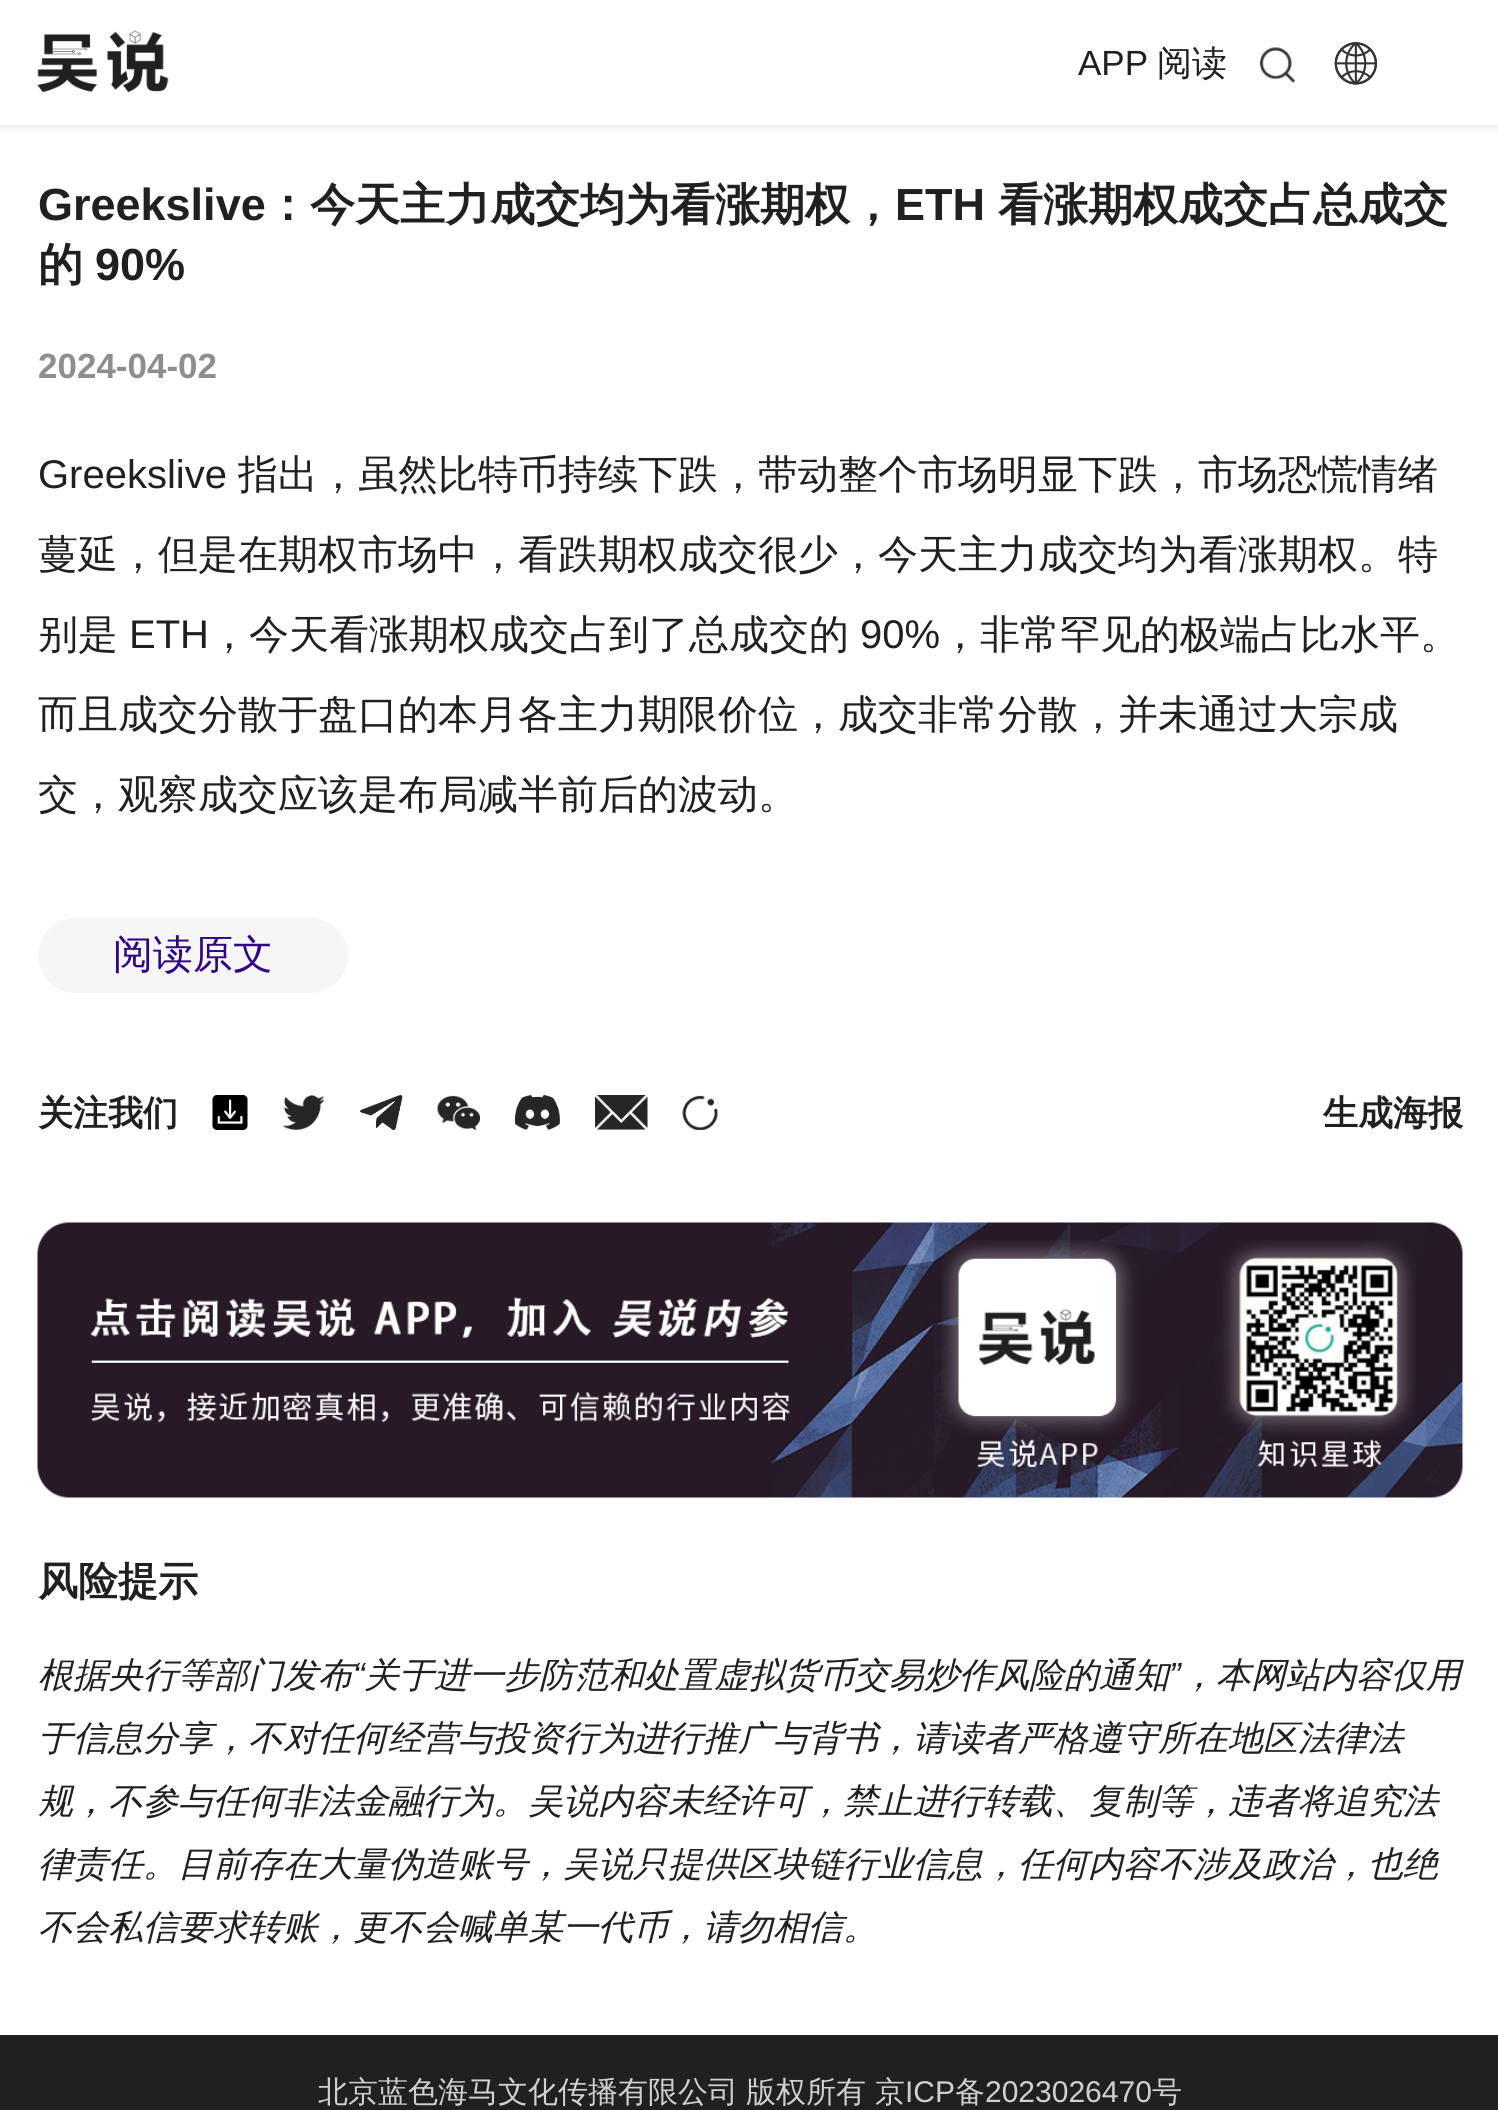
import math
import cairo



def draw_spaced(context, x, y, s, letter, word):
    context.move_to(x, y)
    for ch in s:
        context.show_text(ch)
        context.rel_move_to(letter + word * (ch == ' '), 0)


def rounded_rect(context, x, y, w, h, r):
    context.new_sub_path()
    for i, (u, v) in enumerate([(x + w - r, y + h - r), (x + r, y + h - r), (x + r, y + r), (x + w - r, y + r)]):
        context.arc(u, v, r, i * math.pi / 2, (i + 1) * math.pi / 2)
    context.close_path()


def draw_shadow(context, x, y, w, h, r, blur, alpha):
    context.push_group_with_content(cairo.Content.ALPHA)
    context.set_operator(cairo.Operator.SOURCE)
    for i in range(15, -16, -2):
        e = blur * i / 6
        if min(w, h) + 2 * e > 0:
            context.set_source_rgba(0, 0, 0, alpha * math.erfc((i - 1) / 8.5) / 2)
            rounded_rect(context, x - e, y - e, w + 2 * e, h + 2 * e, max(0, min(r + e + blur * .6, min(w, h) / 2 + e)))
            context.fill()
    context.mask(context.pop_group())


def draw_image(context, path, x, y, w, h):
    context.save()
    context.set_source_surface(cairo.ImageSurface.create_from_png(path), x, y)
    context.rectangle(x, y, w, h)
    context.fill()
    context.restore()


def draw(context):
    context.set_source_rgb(1, 1, 1)
    context.paint()
    context.save()
    context.rectangle(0, 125, 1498, 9)
    context.clip()
    context.set_source_rgb(197 / 255, 191 / 255, 191 / 255)
    draw_shadow(context, -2, -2, 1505, 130, 0, 4, 0.3)
    context.restore()
    draw_image(context, "images/1.png", 37, 30, 132, 63)
    draw_image(context, "images/2.png", 1260, 47, 36, 36)
    draw_image(context, "images/3.png", 1334, 42, 43, 43)
    context.set_source_rgb(246 / 255, 246 / 255, 246 / 255)
    rounded_rect(context, 38, 918, 310, 75, 37.5)
    context.fill()
    draw_image(context, "images/4.png", 212, 1095, 36, 35)
    draw_image(context, "images/5.png", 282, 1095, 43, 35)
    draw_image(context, "images/6.png", 360, 1095, 43, 35)
    draw_image(context, "images/7.png", 437, 1095, 43, 35)
    draw_image(context, "images/8.png", 515, 1095, 45, 35)
    draw_image(context, "images/9.png", 595, 1095, 53, 35)
    draw_image(context, "images/10.png", 682, 1095, 36, 35)
    draw_image(context, "images/11.png", 37, 1222, 1426, 276)
    draw_image(context, "images/12.png", 941, 1240, 475, 228)
    context.set_source_rgb(32 / 255, 32 / 255, 32 / 255)
    context.rectangle(0, 2035, 1498, 75)
    context.fill()
    context.select_font_face("Liberation Sans")
    context.set_font_size(35)
    context.move_to(1078, 75)
    context.show_text("APP")
    context.select_font_face("WenQuanYi Zen Hei Medium")
    context.move_to(1157, 75)
    context.show_text("阅读")
    context.select_font_face("Liberation Sans", cairo.FontSlant.NORMAL, cairo.FontWeight.BOLD)
    context.set_font_size(45)
    context.move_to(38, 220)
    context.show_text("Greekslive")
    context.select_font_face("WenQuanYi Zen Hei", cairo.FontSlant.NORMAL, cairo.FontWeight.BOLD)
    context.move_to(265, 220)
    context.show_text("：今天主力成交均为看涨期权，")
    context.select_font_face("Liberation Sans", cairo.FontSlant.NORMAL, cairo.FontWeight.BOLD)
    context.move_to(895, 220)
    context.show_text("ETH")
    context.select_font_face("WenQuanYi Zen Hei", cairo.FontSlant.NORMAL, cairo.FontWeight.BOLD)
    context.move_to(998, 220)
    context.show_text("看涨期权成交占总成交")
    context.move_to(38, 280)
    context.show_text("的")
    context.select_font_face("Liberation Sans", cairo.FontSlant.NORMAL, cairo.FontWeight.BOLD)
    context.move_to(95, 280)
    context.show_text("90%")
    context.set_font_size(35)
    context.set_source_rgb(142 / 255, 142 / 255, 142 / 255)
    context.move_to(38, 378)
    context.show_text("2024-04-02")
    context.select_font_face("Liberation Sans")
    context.set_font_size(40)
    context.set_source_rgb(32 / 255, 32 / 255, 32 / 255)
    context.move_to(38, 488)
    context.show_text("Greekslive")
    context.select_font_face("WenQuanYi Zen Hei Medium")
    context.move_to(238, 488)
    context.show_text("指出，虽然比特币持续下跌，带动整个市场明显下跌，市场恐慌情绪")
    context.move_to(38, 568)
    context.show_text("蔓延，但是在期权市场中，看跌期权成交很少，今天主力成交均为看涨期权。特")
    context.move_to(38, 648)
    context.show_text("别是")
    context.select_font_face("Liberation Sans")
    context.move_to(129, 648)
    context.show_text("ETH")
    context.select_font_face("WenQuanYi Zen Hei Medium")
    context.move_to(209, 648)
    context.show_text("，今天看涨期权成交占到了总成交的")
    context.select_font_face("Liberation Sans")
    context.move_to(860, 648)
    context.show_text("90%")
    context.select_font_face("WenQuanYi Zen Hei Medium")
    context.move_to(940, 648)
    context.show_text("，非常罕见的极端占比水平。")
    context.move_to(38, 728)
    context.show_text("而且成交分散于盘口的本月各主力期限价位，成交非常分散，并未通过大宗成")
    context.move_to(38, 808)
    context.show_text("交，观察成交应该是布局减半前后的波动。")
    context.set_source_rgb(47 / 255, 5 / 255, 133 / 255)
    context.move_to(113, 968)
    context.show_text("阅读原文")
    context.select_font_face("WenQuanYi Zen Hei", cairo.FontSlant.NORMAL, cairo.FontWeight.BOLD)
    context.set_font_size(35)
    context.set_source_rgb(32 / 255, 32 / 255, 32 / 255)
    context.move_to(38, 1125)
    context.show_text("关注我们")
    context.move_to(1323, 1125)
    context.show_text("生成海报")
    context.set_font_size(40)
    context.move_to(38, 1595)
    context.show_text("风险提示")
    context.select_font_face("WenQuanYi Zen Hei Medium", cairo.FontSlant.ITALIC)
    context.set_font_size(35)
    context.move_to(38, 1687)
    context.show_text("根据央行等部门发布")
    context.select_font_face("Liberation Sans", cairo.FontSlant.ITALIC)
    context.move_to(353, 1687)
    context.show_text("“")
    context.select_font_face("WenQuanYi Zen Hei Medium", cairo.FontSlant.ITALIC)
    context.move_to(364, 1687)
    context.show_text("关于进一步防范和处置虚拟货币交易炒作风险的通知")
    context.select_font_face("Liberation Sans", cairo.FontSlant.ITALIC)
    context.move_to(1169, 1687)
    context.show_text("”")
    context.select_font_face("WenQuanYi Zen Hei Medium", cairo.FontSlant.ITALIC)
    context.move_to(1181, 1687)
    context.show_text("，本网站内容仅用")
    context.move_to(38, 1750)
    context.show_text("于信息分享，不对任何经营与投资行为进行推广与背书，请读者严格遵守所在地区法律法")
    context.move_to(38, 1813)
    context.show_text("规，不参与任何非法金融行为。吴说内容未经许可，禁止进行转载、复制等，违者将追究法")
    context.move_to(38, 1876)
    context.show_text("律责任。目前存在大量伪造账号，吴说只提供区块链行业信息，任何内容不涉及政治，也绝")
    context.move_to(38, 1939)
    context.show_text("不会私信要求转账，更不会喊单某一代币，请勿相信。")
    context.select_font_face("WenQuanYi Zen Hei Medium")
    context.set_font_size(30)
    context.set_source_rgb(208 / 255, 208 / 255, 208 / 255)
    draw_spaced(context, 318, 2102, "北京蓝色海马文化传播有限公司 版权所有", 0, -1)
    context.move_to(875, 2102)
    context.show_text("京")
    context.select_font_face("Liberation Sans")
    context.move_to(905, 2102)
    context.show_text("ICP")
    context.select_font_face("WenQuanYi Zen Hei Medium")
    context.move_to(955, 2102)
    context.show_text("备")
    context.select_font_face("Liberation Sans")
    context.move_to(985, 2102)
    context.show_text("2023026470")
    context.select_font_face("WenQuanYi Zen Hei Medium")
    context.move_to(1152, 2102)
    context.show_text("号")


surface = cairo.ImageSurface(cairo.Format.RGB24, 1498, 2110)
context = cairo.Context(surface)
options = cairo.FontOptions()
options.set_hint_metrics(cairo.HintMetrics.OFF)
options.set_hint_style(cairo.HintStyle.NONE)
context.set_font_options(options)
context.set_miter_limit(4)
draw(context)
surface.write_to_png("out.png")
